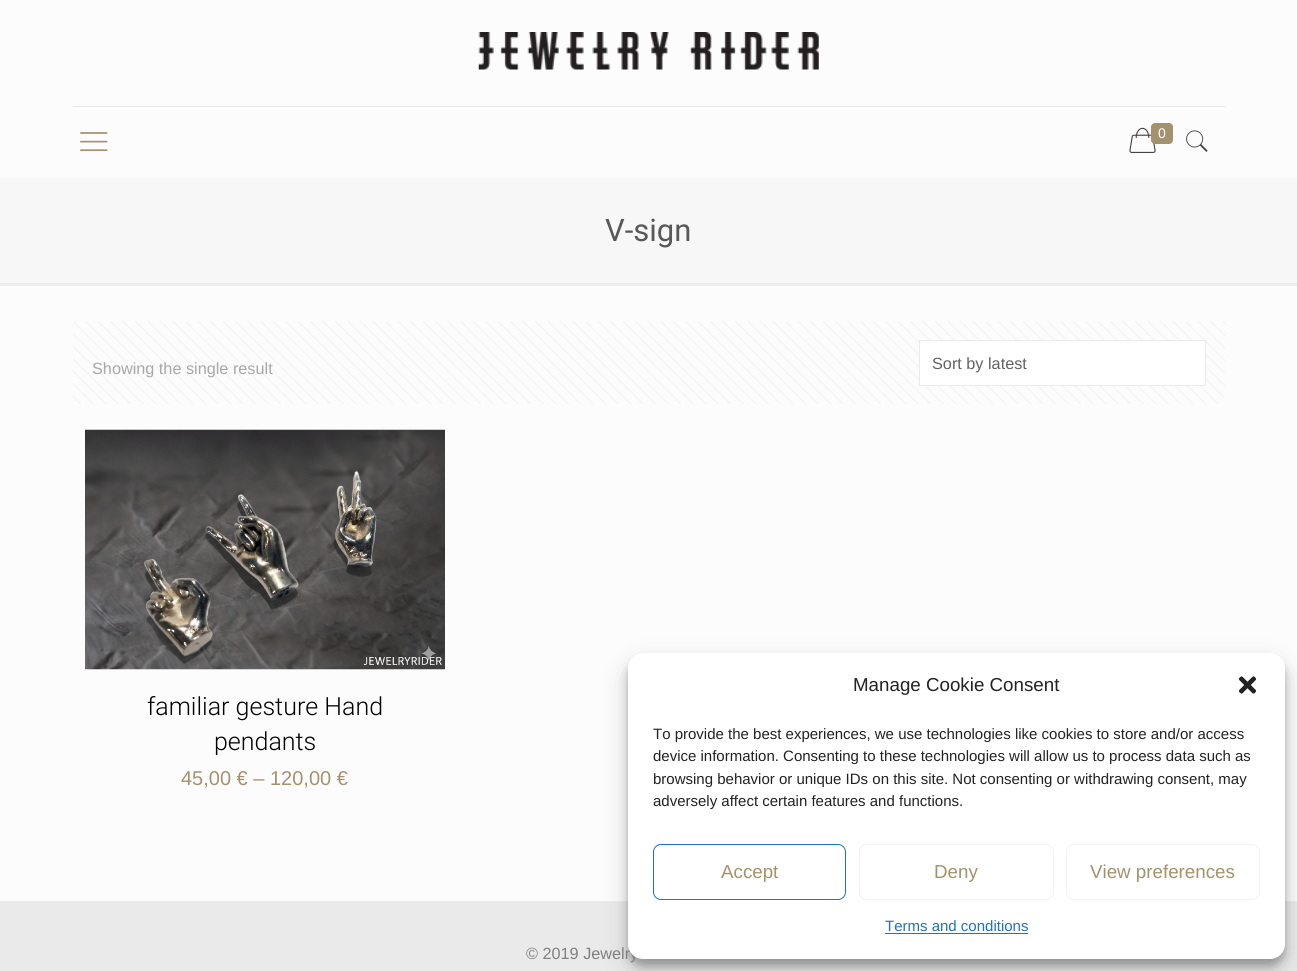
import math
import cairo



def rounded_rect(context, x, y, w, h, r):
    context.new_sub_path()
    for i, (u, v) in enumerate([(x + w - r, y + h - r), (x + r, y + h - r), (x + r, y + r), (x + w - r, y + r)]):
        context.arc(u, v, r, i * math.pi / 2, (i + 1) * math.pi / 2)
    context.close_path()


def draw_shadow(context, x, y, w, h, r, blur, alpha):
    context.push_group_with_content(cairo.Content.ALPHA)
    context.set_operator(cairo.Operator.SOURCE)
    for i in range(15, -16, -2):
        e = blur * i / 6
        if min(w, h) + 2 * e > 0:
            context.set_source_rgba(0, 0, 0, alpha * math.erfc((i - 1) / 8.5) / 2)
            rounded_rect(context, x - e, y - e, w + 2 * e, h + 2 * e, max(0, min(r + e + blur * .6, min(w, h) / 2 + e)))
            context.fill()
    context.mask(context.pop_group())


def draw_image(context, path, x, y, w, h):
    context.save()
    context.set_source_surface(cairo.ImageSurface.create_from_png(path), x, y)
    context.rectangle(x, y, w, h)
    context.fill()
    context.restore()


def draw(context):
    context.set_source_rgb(252 / 255, 252 / 255, 252 / 255)
    context.paint()
    context.set_source_rgb(239 / 255, 239 / 255, 239 / 255)
    context.rectangle(0, 284, 1297, 2)
    context.fill()
    context.set_source_rgb(232 / 255, 232 / 255, 232 / 255)
    context.rectangle(73, 106, 1152, 1)
    context.fill()
    draw_image(context, "images/1.png", 478, 32, 341, 38)
    draw_image(context, "images/2.png", 80, 132, 28, 20)
    draw_image(context, "images/3.png", 1129, 127, 27, 26)
    context.set_source_rgb(164 / 255, 145 / 255, 109 / 255)
    rounded_rect(context, 1151, 123, 22, 21, 4)
    context.fill()
    draw_image(context, "images/4.png", 1186, 130, 22, 22)
    context.set_source_rgb(247 / 255, 247 / 255, 247 / 255)
    context.rectangle(0, 178, 1297, 105)
    context.fill()
    context.set_source_rgb(235 / 255, 235 / 255, 235 / 255)
    context.rectangle(0, 283, 1297, 1)
    context.fill()
    draw_image(context, "images/5.png", 73, 321, 1152, 83)
    context.set_source_rgb(1, 1, 1)
    context.rectangle(919.5, 340.5, 286, 45)
    context.fill_preserve()
    context.set_source_rgb(235 / 255, 235 / 255, 235 / 255)
    context.set_line_width(1)
    context.stroke()
    draw_image(context, "images/6.png", 85, 429, 360, 241)
    context.set_source_rgb(234 / 255, 234 / 255, 234 / 255)
    context.rectangle(0, 902, 1297, 69)
    context.fill()
    context.set_source_rgb(236 / 255, 236 / 255, 236 / 255)
    context.rectangle(0, 901, 1297, 1)
    context.fill()
    context.set_source_rgb(0, 0, 0)
    draw_shadow(context, 628, 660, 657, 306, 15, 4, 0.23)
    draw_shadow(context, 628, 665, 657, 306, 15, 12.5, 0.19)
    context.select_font_face("Liberation Sans")
    context.set_font_size(14)
    context.set_source_rgb(1, 1, 1)
    context.move_to(1158, 138)
    context.show_text("0")
    context.select_font_face("Roboto")
    context.set_font_size(31)
    context.set_source_rgb(88 / 255, 88 / 255, 88 / 255)
    context.move_to(605, 241)
    context.show_text("V-sign")
    context.select_font_face("Liberation Sans")
    context.set_font_size(16.25)
    context.set_source_rgb(168 / 255, 168 / 255, 168 / 255)
    context.move_to(92, 374)
    context.show_text("Showing the single result")
    context.set_source_rgb(98 / 255, 98 / 255, 98 / 255)
    context.move_to(932, 369)
    context.show_text("Sort by latest")
    context.select_font_face("Roboto Light")
    context.set_font_size(25)
    context.set_source_rgb(0, 0, 0)
    context.move_to(147, 715)
    context.show_text("familiar gesture Hand")
    context.move_to(214, 750)
    context.show_text("pendants")
    context.select_font_face("Liberation Sans")
    context.set_font_size(20)
    context.set_source_rgb(164 / 255, 145 / 255, 109 / 255)
    context.move_to(181, 785)
    context.show_text("45,00 € – 120,00 €")
    context.set_font_size(16.25)
    context.set_source_rgb(128 / 255, 128 / 255, 128 / 255)
    context.move_to(526, 959)
    context.show_text("© 2019 Jewelry")
    context.set_source_rgb(1, 1, 1)
    rounded_rect(context, 628, 653, 657, 306, 15)
    context.fill()
    context.set_font_size(18.75)
    context.set_source_rgb(34 / 255, 34 / 255, 34 / 255)
    context.move_to(853, 691)
    context.show_text("Manage Cookie Consent")
    draw_image(context, "images/7.png", 1238, 676, 19, 18)
    context.set_font_size(15)
    context.move_to(653, 739)
    context.show_text("To provide the best experiences, we use technologies like cookies to store and/or access")
    context.move_to(653, 761)
    context.show_text("device information. Consenting to these technologies will allow us to process data such as")
    context.move_to(653, 784)
    context.show_text("browsing behavior or unique IDs on this site. Not consenting or withdrawing consent, may")
    context.move_to(653, 806)
    context.show_text("adversely affect certain features and functions.")
    rounded_rect(context, 653.5, 844.5, 192, 55, 7.5)
    context.set_source_rgb(30 / 255, 115 / 255, 190 / 255)
    context.stroke()
    context.set_font_size(18.75)
    context.set_source_rgb(164 / 255, 145 / 255, 109 / 255)
    context.move_to(721, 878)
    context.show_text("Accept")
    rounded_rect(context, 859.5, 844.5, 194, 55, 7.5)
    context.set_source_rgb(242 / 255, 242 / 255, 242 / 255)
    context.stroke()
    context.set_source_rgb(164 / 255, 145 / 255, 109 / 255)
    context.move_to(934, 878)
    context.show_text("Deny")
    rounded_rect(context, 1066.5, 844.5, 193, 55, 7.5)
    context.set_source_rgb(242 / 255, 242 / 255, 242 / 255)
    context.stroke()
    context.set_source_rgb(164 / 255, 145 / 255, 109 / 255)
    context.move_to(1090, 878)
    context.show_text("View preferences")
    context.set_font_size(15)
    context.set_source_rgb(30 / 255, 115 / 255, 190 / 255)
    context.move_to(885, 931)
    context.show_text("Terms and conditions")
    context.rectangle(885, 933, 143, 1)
    context.fill()


surface = cairo.ImageSurface(cairo.Format.RGB24, 1297, 971)
context = cairo.Context(surface)
options = cairo.FontOptions()
options.set_hint_metrics(cairo.HintMetrics.OFF)
options.set_hint_style(cairo.HintStyle.NONE)
context.set_font_options(options)
context.set_miter_limit(4)
draw(context)
surface.write_to_png("out.png")
